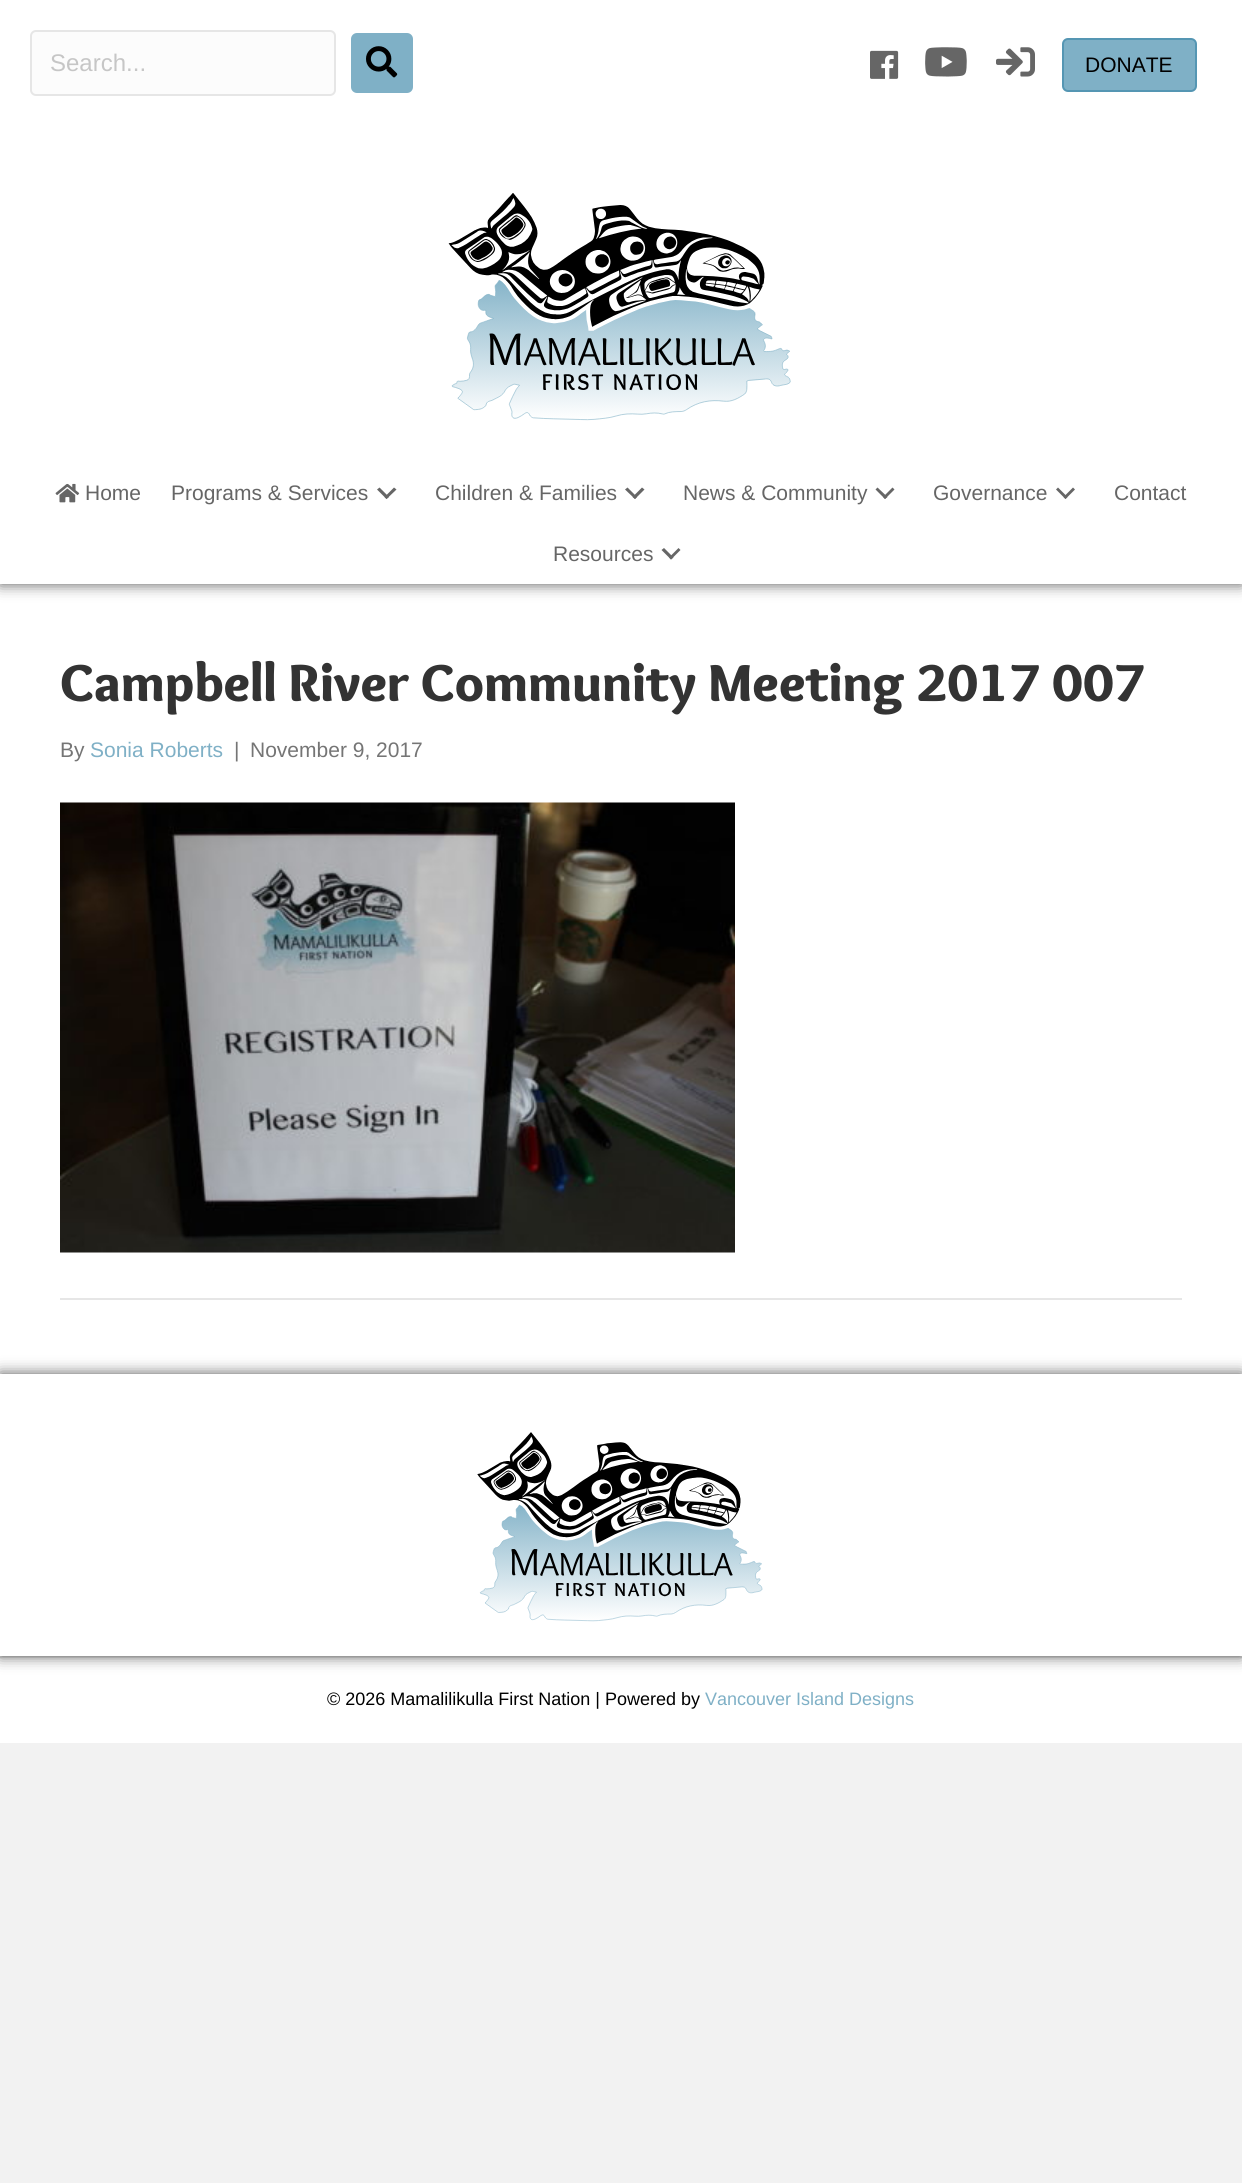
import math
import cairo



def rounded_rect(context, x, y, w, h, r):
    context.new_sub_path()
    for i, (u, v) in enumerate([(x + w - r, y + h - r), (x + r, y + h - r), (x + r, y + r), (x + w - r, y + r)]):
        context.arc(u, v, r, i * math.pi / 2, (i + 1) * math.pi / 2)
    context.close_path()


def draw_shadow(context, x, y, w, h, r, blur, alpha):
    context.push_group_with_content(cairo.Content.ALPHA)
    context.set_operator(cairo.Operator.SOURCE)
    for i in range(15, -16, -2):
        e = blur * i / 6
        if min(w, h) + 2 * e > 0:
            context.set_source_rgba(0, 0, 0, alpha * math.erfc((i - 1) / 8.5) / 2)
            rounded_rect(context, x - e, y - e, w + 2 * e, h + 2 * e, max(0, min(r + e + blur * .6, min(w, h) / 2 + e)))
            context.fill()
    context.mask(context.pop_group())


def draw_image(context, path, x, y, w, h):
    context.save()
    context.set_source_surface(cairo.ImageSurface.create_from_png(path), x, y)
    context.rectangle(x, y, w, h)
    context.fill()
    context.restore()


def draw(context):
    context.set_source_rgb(242 / 255, 242 / 255, 242 / 255)
    context.paint()
    context.set_source_rgb(1, 1, 1)
    context.rectangle(0, 584, 1242, 790)
    context.fill()
    context.set_source_rgb(0, 0, 0)
    draw_shadow(context, 0, 0, 1242, 584, 0, 7.5, 0.66)
    context.set_source_rgb(1, 1, 1)
    context.rectangle(0, 0, 1242, 584)
    context.fill()
    context.set_source_rgb(252 / 255, 252 / 255, 252 / 255)
    rounded_rect(context, 31, 31, 304, 64, 5)
    context.fill_preserve()
    context.set_source_rgb(230 / 255, 230 / 255, 230 / 255)
    context.stroke()
    context.set_source_rgb(127 / 255, 176 / 255, 198 / 255)
    rounded_rect(context, 351, 33, 62, 60, 6)
    context.fill()
    draw_image(context, "images/1.png", 366, 46, 32, 32)
    draw_image(context, "images/2.png", 870, 50, 29, 29)
    draw_image(context, "images/3.png", 925, 47, 42, 30)
    draw_image(context, "images/4.png", 996, 47, 39, 30)
    rounded_rect(context, 1063, 39, 133, 52, 5)
    context.fill_preserve()
    context.set_source_rgb(85 / 255, 150 / 255, 179 / 255)
    context.stroke()
    draw_image(context, "images/5.png", 448, 193, 343, 228)
    draw_image(context, "images/6.png", 55, 483, 25, 20)
    context.set_source_rgb(102 / 255, 102 / 255, 102 / 255)
    context.new_path()
    context.move_to(394, 487.5)
    context.line_to(396.5, 489.5)
    context.line_to(386.5, 499)
    context.line_to(384.5, 497)
    context.close_path()
    context.fill()
    context.new_path()
    context.move_to(379.5, 487.5)
    context.line_to(389, 497)
    context.line_to(386.5, 499)
    context.line_to(377, 489.5)
    context.close_path()
    context.fill()
    context.new_path()
    context.move_to(642, 487.5)
    context.line_to(644.5, 489.5)
    context.line_to(635, 499)
    context.line_to(632.5, 497)
    context.close_path()
    context.fill()
    context.new_path()
    context.move_to(627.5, 487.5)
    context.line_to(637, 497)
    context.line_to(635, 499)
    context.line_to(625, 489.5)
    context.close_path()
    context.fill()
    context.new_path()
    context.move_to(892.5, 487.5)
    context.line_to(894.5, 489.5)
    context.line_to(885, 499)
    context.line_to(883, 497)
    context.close_path()
    context.fill()
    context.new_path()
    context.move_to(877.5, 487.5)
    context.line_to(887.5, 497)
    context.line_to(885, 499)
    context.line_to(875.5, 489.5)
    context.close_path()
    context.fill()
    context.new_path()
    context.move_to(1073, 487.5)
    context.line_to(1075, 489.5)
    context.line_to(1065.5, 499)
    context.line_to(1063.5, 497)
    context.close_path()
    context.fill()
    context.new_path()
    context.move_to(1058, 487.5)
    context.line_to(1067.5, 497)
    context.line_to(1065.5, 499)
    context.line_to(1056, 489.5)
    context.close_path()
    context.fill()
    context.new_path()
    context.move_to(678.5, 548)
    context.line_to(680.5, 550)
    context.line_to(671, 559.5)
    context.line_to(669, 557.5)
    context.close_path()
    context.fill()
    context.new_path()
    context.move_to(664, 548)
    context.line_to(673.5, 557.5)
    context.line_to(671, 559.5)
    context.line_to(661.5, 550)
    context.close_path()
    context.fill()
    draw_image(context, "images/7.png", 60, 802, 675, 451)
    context.set_source_rgb(230 / 255, 230 / 255, 230 / 255)
    context.rectangle(60, 1298, 1122, 2)
    context.fill()
    context.set_source_rgb(1, 1, 1)
    context.rectangle(0, 1658, 1242, 85)
    context.fill()
    context.set_source_rgb(230 / 255, 230 / 255, 230 / 255)
    context.rectangle(0, 1656, 1242, 2)
    context.fill()
    context.set_source_rgb(0, 0, 0)
    draw_shadow(context, 0, 1374, 1242, 282, 0, 7.5, 0.66)
    context.set_source_rgb(1, 1, 1)
    context.rectangle(0, 1374, 1242, 282)
    context.fill()
    draw_image(context, "images/8.png", 477, 1432, 286, 190)
    context.select_font_face("Liberation Sans")
    context.set_font_size(24)
    context.set_source_rgb(198 / 255, 198 / 255, 198 / 255)
    context.move_to(50, 71)
    context.show_text("Search...")
    context.set_font_size(21)
    context.set_source_rgb(0, 0, 0)
    context.move_to(1085, 72)
    context.show_text("DONATE")
    context.set_source_rgb(102 / 255, 102 / 255, 102 / 255)
    context.move_to(85, 500)
    context.show_text("Home")
    context.move_to(171, 500)
    context.show_text("Programs & Services")
    context.move_to(435, 500)
    context.show_text("Children & Families")
    context.move_to(683, 500)
    context.show_text("News & Community")
    context.move_to(933, 500)
    context.show_text("Governance")
    context.move_to(1114, 500)
    context.show_text("Contact")
    context.move_to(553, 561)
    context.show_text("Resources")
    context.select_font_face("Overlock Black")
    context.set_font_size(54)
    context.set_source_rgb(51 / 255, 51 / 255, 51 / 255)
    context.move_to(60, 701)
    context.show_text("Campbell River Community Meeting 2017 007")
    context.select_font_face("Liberation Sans")
    context.set_font_size(21)
    context.set_source_rgb(117 / 255, 117 / 255, 117 / 255)
    context.move_to(60, 757)
    context.show_text("By")
    context.set_source_rgb(127 / 255, 176 / 255, 198 / 255)
    context.move_to(90, 757)
    context.show_text("Sonia Roberts")
    context.set_source_rgb(117 / 255, 117 / 255, 117 / 255)
    context.move_to(234, 757)
    context.show_text("|")
    context.move_to(250, 757)
    context.show_text("November 9, 2017")
    context.set_font_size(18)
    context.set_source_rgb(0, 0, 0)
    context.move_to(327, 1705)
    context.show_text("© 2026 Mamalilikulla First Nation | Powered by")
    context.set_source_rgb(127 / 255, 176 / 255, 198 / 255)
    context.move_to(705, 1705)
    context.show_text("Vancouver Island Designs")


surface = cairo.ImageSurface(cairo.Format.RGB24, 1242, 2183)
context = cairo.Context(surface)
options = cairo.FontOptions()
options.set_hint_metrics(cairo.HintMetrics.OFF)
options.set_hint_style(cairo.HintStyle.NONE)
context.set_font_options(options)
context.set_miter_limit(4)
draw(context)
surface.write_to_png("out.png")
